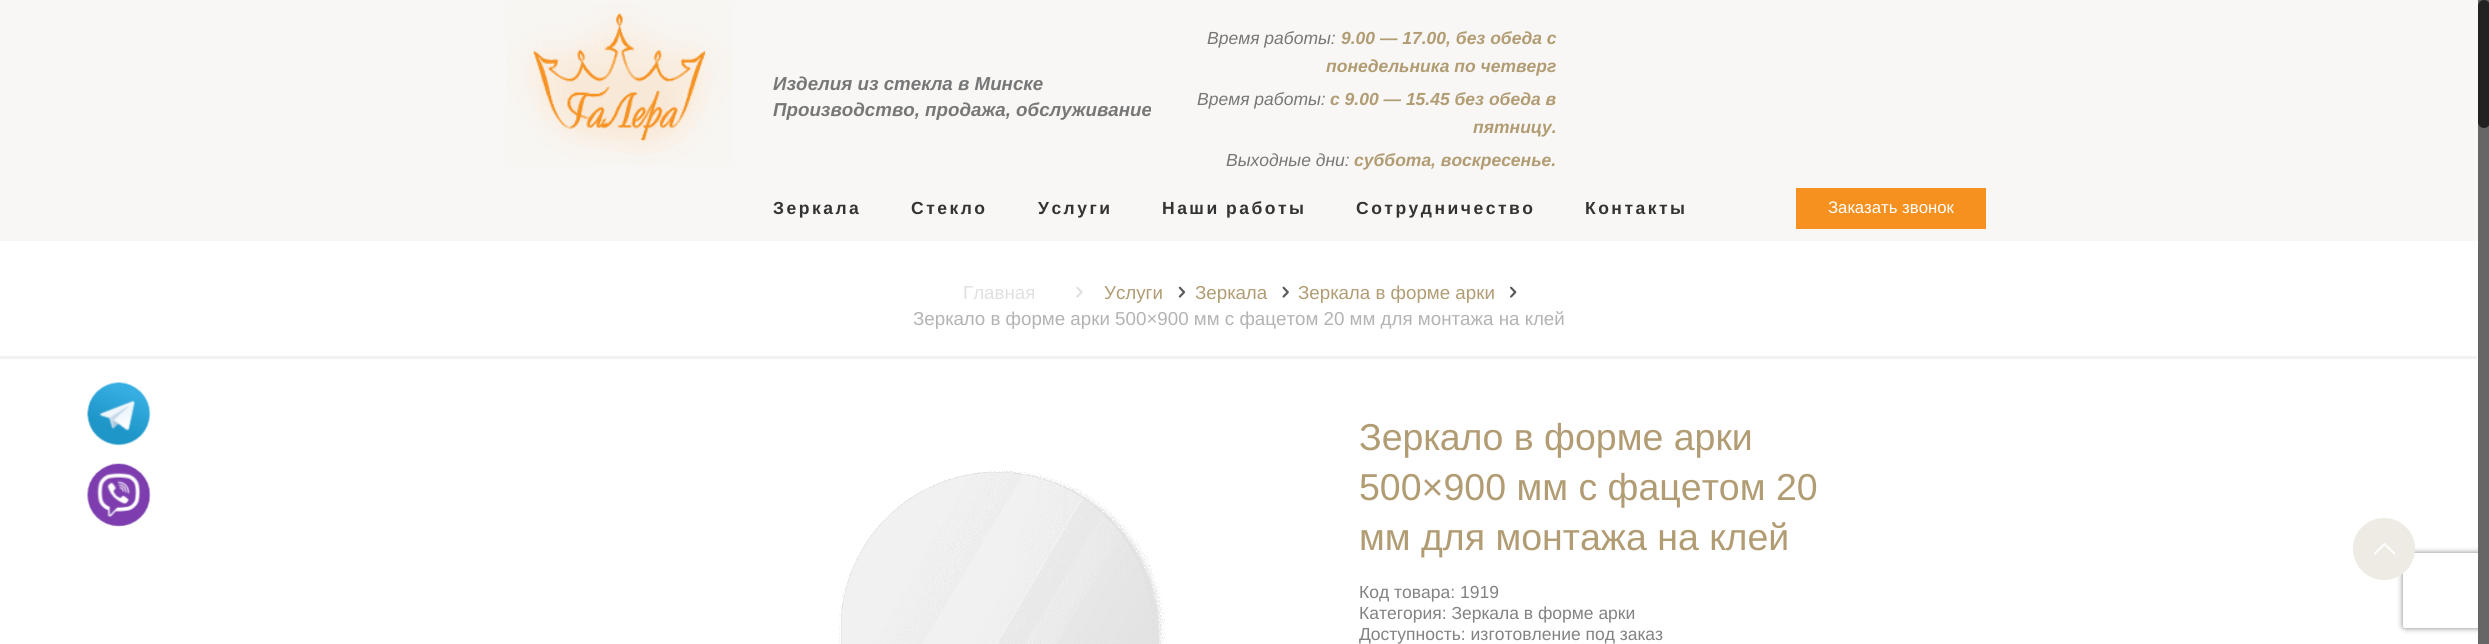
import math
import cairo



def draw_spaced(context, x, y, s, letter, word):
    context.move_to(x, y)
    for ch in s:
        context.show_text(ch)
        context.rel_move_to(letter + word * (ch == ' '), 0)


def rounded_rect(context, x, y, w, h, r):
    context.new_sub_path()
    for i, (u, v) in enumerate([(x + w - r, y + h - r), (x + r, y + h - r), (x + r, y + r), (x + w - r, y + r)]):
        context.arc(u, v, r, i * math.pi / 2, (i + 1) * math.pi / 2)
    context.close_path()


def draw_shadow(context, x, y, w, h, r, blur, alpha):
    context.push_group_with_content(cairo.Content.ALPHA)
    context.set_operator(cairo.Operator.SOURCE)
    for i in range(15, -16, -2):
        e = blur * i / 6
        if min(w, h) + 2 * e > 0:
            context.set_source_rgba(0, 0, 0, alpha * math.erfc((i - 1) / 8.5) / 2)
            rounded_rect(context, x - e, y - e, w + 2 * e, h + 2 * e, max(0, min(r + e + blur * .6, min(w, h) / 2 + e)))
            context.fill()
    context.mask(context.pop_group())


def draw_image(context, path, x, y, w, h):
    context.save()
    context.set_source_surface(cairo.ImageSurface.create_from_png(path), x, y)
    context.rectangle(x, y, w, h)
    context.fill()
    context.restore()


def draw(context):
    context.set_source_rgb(1, 1, 1)
    context.paint()
    draw_image(context, "images/1.png", 87, 382, 64, 64)
    context.set_source_rgb(248 / 255, 247 / 255, 245 / 255)
    context.rectangle(0, 0, 2478, 241)
    context.fill()
    draw_image(context, "images/2.png", 506, 1, 227, 166)
    context.set_source_rgb(246 / 255, 144 / 255, 30 / 255)
    context.rectangle(1796, 188, 190, 41)
    context.fill()
    draw_image(context, "images/3.png", 1076, 286, 7, 12)
    draw_image(context, "images/4.png", 1178, 286, 8, 12)
    draw_image(context, "images/5.png", 1282, 286, 7, 12)
    draw_image(context, "images/6.png", 1510, 286, 7, 12)
    context.set_source_rgb(242 / 255, 242 / 255, 242 / 255)
    context.rectangle(0, 356, 2477, 3)
    context.fill()
    draw_image(context, "images/7.png", 838, 471, 328, 173)
    context.save()
    context.set_fill_rule(cairo.FillRule.EVEN_ODD)
    context.new_path()
    context.move_to(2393, 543)
    context.line_to(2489, 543)
    context.line_to(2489, 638)
    context.line_to(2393, 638)
    context.close_path()
    context.move_to(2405.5, 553)
    context.line_to(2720.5, 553)
    context.curve_to(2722, 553, 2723, 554, 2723, 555.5)
    context.line_to(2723, 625.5)
    context.curve_to(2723, 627, 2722, 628, 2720.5, 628)
    context.line_to(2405.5, 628)
    context.curve_to(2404, 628, 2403, 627, 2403, 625.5)
    context.line_to(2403, 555.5)
    context.curve_to(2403, 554, 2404, 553, 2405.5, 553)
    context.close_path()
    context.clip()
    context.set_source_rgb(128 / 255, 128 / 255, 128 / 255)
    draw_shadow(context, 2403, 553, 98, 75, 2.5, 3, 1)
    context.restore()
    context.set_source_rgb(238 / 255, 235 / 255, 229 / 255)
    context.arc(2384, 549, 31, 0, 2 * math.pi)
    context.fill()
    draw_image(context, "images/8.png", 2374, 543, 22, 12)
    context.set_source_rgb(102 / 255, 102 / 255, 102 / 255)
    context.rectangle(2478, 0, 11, 644)
    context.fill()
    context.set_source_rgb(34 / 255, 34 / 255, 34 / 255)
    rounded_rect(context, 2478, 0, 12, 128, 6)
    context.fill()
    draw_image(context, "images/9.png", 87, 463, 64, 64)
    context.select_font_face("Liberation Sans", cairo.FontSlant.ITALIC, cairo.FontWeight.BOLD)
    context.set_font_size(18.75)
    context.set_source_rgb(119 / 255, 119 / 255, 119 / 255)
    context.move_to(773, 90)
    context.show_text("Изделия из стекла в Минске")
    context.move_to(773, 116)
    context.show_text("Производство, продажа, обслуживание")
    context.select_font_face("Liberation Sans", cairo.FontSlant.ITALIC)
    context.set_font_size(17.5)
    context.move_to(1207, 44)
    context.show_text("Время работы:")
    context.select_font_face("Liberation Sans", cairo.FontSlant.ITALIC, cairo.FontWeight.BOLD)
    context.set_source_rgb(177 / 255, 156 / 255, 115 / 255)
    context.move_to(1341, 44)
    context.show_text("9.00 — 17.00, без обеда с")
    context.move_to(1326, 72)
    context.show_text("понедельника по четверг")
    context.select_font_face("Liberation Sans", cairo.FontSlant.ITALIC)
    context.set_source_rgb(119 / 255, 119 / 255, 119 / 255)
    context.move_to(1197, 105)
    context.show_text("Время работы:")
    context.select_font_face("Liberation Sans", cairo.FontSlant.ITALIC, cairo.FontWeight.BOLD)
    context.set_source_rgb(177 / 255, 156 / 255, 115 / 255)
    context.move_to(1330, 105)
    context.show_text("с 9.00 — 15.45 без обеда в")
    context.move_to(1473, 133)
    context.show_text("пятницу.")
    context.select_font_face("Liberation Sans", cairo.FontSlant.ITALIC)
    context.set_source_rgb(119 / 255, 119 / 255, 119 / 255)
    context.move_to(1226, 166)
    context.show_text("Выходные дни:")
    context.select_font_face("Liberation Sans", cairo.FontSlant.ITALIC, cairo.FontWeight.BOLD)
    context.set_source_rgb(177 / 255, 156 / 255, 115 / 255)
    context.move_to(1354, 166)
    context.show_text("суббота, воскресенье.")
    context.select_font_face("Liberation Sans", cairo.FontSlant.NORMAL, cairo.FontWeight.BOLD)
    context.set_source_rgb(51 / 255, 51 / 255, 51 / 255)
    draw_spaced(context, 773, 214, "Зеркала", 2.5, 0)
    draw_spaced(context, 911, 214, "Стекло", 2.5, 0)
    draw_spaced(context, 1038, 214, "Услуги", 2.5, 0)
    draw_spaced(context, 1162, 214, "Наши работы", 2.5, -1)
    draw_spaced(context, 1356, 214, "Сотрудничество", 2.5, 0)
    draw_spaced(context, 1585, 214, "Контакты", 2.5, 0)
    context.select_font_face("Liberation Sans")
    context.set_font_size(16.75)
    context.set_source_rgb(1, 1, 1)
    context.move_to(1828, 213)
    context.show_text("Заказать звонок")
    context.set_font_size(18.75)
    context.set_source_rgb(224 / 255, 224 / 255, 224 / 255)
    context.move_to(963, 299)
    context.show_text("Главная")
    context.set_source_rgb(177 / 255, 156 / 255, 115 / 255)
    context.move_to(1104, 299)
    context.show_text("Услуги")
    context.move_to(1195, 299)
    context.show_text("Зеркала")
    context.move_to(1298, 299)
    context.show_text("Зеркала в форме арки")
    context.set_source_rgb(179 / 255, 179 / 255, 179 / 255)
    context.move_to(913, 325)
    context.show_text("Зеркало в форме арки 500×900 мм с фацетом 20 мм для монтажа на клей")
    context.set_font_size(37.5)
    context.set_source_rgb(177 / 255, 156 / 255, 115 / 255)
    context.move_to(1359, 450)
    context.show_text("Зеркало в форме арки")
    context.move_to(1359, 500)
    context.show_text("500×900 мм с фацетом 20")
    context.move_to(1359, 550)
    context.show_text("мм для монтажа на клей")
    context.set_font_size(17.5)
    context.set_source_rgb(130 / 255, 130 / 255, 130 / 255)
    context.move_to(1359, 598)
    context.show_text("Код товара: 1919")
    context.move_to(1359, 619)
    context.show_text("Категория: Зеркала в форме арки")
    context.move_to(1359, 640)
    context.show_text("Доступность: изготовление под заказ")


surface = cairo.ImageSurface(cairo.Format.RGB24, 2489, 644)
context = cairo.Context(surface)
options = cairo.FontOptions()
options.set_hint_metrics(cairo.HintMetrics.OFF)
options.set_hint_style(cairo.HintStyle.NONE)
context.set_font_options(options)
context.set_miter_limit(4)
draw(context)
surface.write_to_png("out.png")
